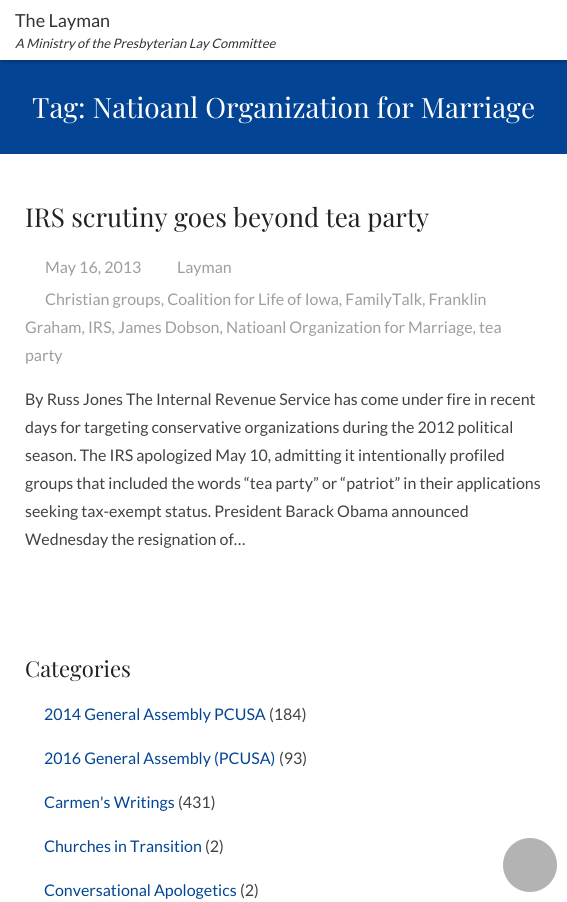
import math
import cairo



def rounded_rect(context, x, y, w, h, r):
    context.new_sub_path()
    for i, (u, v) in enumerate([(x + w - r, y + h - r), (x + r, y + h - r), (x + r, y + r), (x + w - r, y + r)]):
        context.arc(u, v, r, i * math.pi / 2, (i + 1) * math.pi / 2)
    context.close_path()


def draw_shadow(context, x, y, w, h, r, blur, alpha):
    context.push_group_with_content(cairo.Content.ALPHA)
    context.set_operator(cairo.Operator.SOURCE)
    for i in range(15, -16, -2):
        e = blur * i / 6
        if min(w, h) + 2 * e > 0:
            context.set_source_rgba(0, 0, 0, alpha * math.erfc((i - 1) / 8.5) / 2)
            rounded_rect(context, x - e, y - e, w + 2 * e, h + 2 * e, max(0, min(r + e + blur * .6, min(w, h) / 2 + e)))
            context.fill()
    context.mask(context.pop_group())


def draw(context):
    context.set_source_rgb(1, 1, 1)
    context.paint()
    context.set_source_rgb(3 / 255, 69 / 255, 148 / 255)
    context.rectangle(0, 60, 567, 93)
    context.fill()
    context.set_source_rgb(0, 0, 0)
    draw_shadow(context, 1, 3, 565, 58, 0, 0.5, 0.05)
    draw_shadow(context, 2, 6, 563, 56, 0, 2.5, 0.22)
    context.set_source_rgb(1, 1, 1)
    context.rectangle(0, 2, 567, 58)
    context.fill()
    context.save()
    context.rectangle(0, 0, 567, 154)
    context.clip()
    context.set_source_rgb(3 / 255, 66 / 255, 142 / 255)
    context.set_fill_rule(cairo.FillRule.EVEN_ODD)
    context.new_path()
    context.move_to(-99, -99)
    context.line_to(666, -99)
    context.line_to(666, 253)
    context.line_to(-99, 253)
    context.close_path()
    context.move_to(0, -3)
    context.line_to(567, -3)
    context.curve_to(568, -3, 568, -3, 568, -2)
    context.line_to(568, 152)
    context.curve_to(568, 153, 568, 153, 567, 153)
    context.line_to(0, 153)
    context.curve_to(-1, 153, -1, 153, -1, 152)
    context.line_to(-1, -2)
    context.curve_to(-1, -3, -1, -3, 0, -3)
    context.close_path()
    context.fill()
    context.restore()
    context.set_source_rgb(179 / 255, 179 / 255, 179 / 255)
    context.arc(530, 865, 27, 0, 2 * math.pi)
    context.fill()
    context.select_font_face("Lato")
    context.set_font_size(18)
    context.set_source_rgb(51 / 255, 51 / 255, 51 / 255)
    context.move_to(15, 27)
    context.show_text("The Layman")
    context.select_font_face("Lato", cairo.FontSlant.ITALIC)
    context.set_font_size(13)
    context.move_to(15, 48)
    context.show_text("A Ministry of the Presbyterian Lay Committee")
    context.select_font_face("Playfair Display")
    context.set_font_size(28)
    context.set_source_rgb(1, 1, 1)
    context.move_to(32, 118)
    context.show_text("Tag: Natioanl Organization for Marriage")
    context.set_font_size(26)
    context.set_source_rgb(33 / 255, 33 / 255, 33 / 255)
    context.move_to(25, 227)
    context.show_text("IRS scrutiny goes beyond tea party")
    context.select_font_face("Lato")
    context.set_font_size(16)
    context.set_source_rgb(158 / 255, 158 / 255, 158 / 255)
    context.move_to(45, 273)
    context.show_text("May 16, 2013")
    context.move_to(177, 273)
    context.show_text("Layman")
    context.move_to(45, 305)
    context.show_text("Christian groups, Coalition for Life of Iowa, FamilyTalk, Franklin")
    context.move_to(25, 333)
    context.show_text("Graham, IRS, James Dobson, Natioanl Organization for Marriage, tea")
    context.move_to(25, 361)
    context.show_text("party")
    context.set_source_rgb(66 / 255, 66 / 255, 66 / 255)
    context.move_to(25, 405)
    context.show_text("By Russ Jones The Internal Revenue Service has come under fire in recent")
    context.move_to(25, 433)
    context.show_text("days for targeting conservative organizations during the 2012 political")
    context.move_to(25, 461)
    context.show_text("season. The IRS apologized May 10, admitting it intentionally profiled")
    context.move_to(25, 489)
    context.show_text("groups that included the words “tea party” or “patriot” in their applications")
    context.move_to(25, 517)
    context.show_text("seeking tax-exempt status. President Barack Obama announced")
    context.move_to(25, 545)
    context.show_text("Wednesday the resignation of…")
    context.select_font_face("Playfair Display")
    context.set_font_size(22)
    context.set_source_rgb(33 / 255, 33 / 255, 33 / 255)
    context.move_to(25, 677)
    context.show_text("Categories")
    context.select_font_face("Lato")
    context.set_font_size(16)
    context.set_source_rgb(3 / 255, 69 / 255, 148 / 255)
    context.move_to(44, 720)
    context.show_text("2014 General Assembly PCUSA")
    context.set_source_rgb(66 / 255, 66 / 255, 66 / 255)
    context.move_to(269, 720)
    context.show_text("(184)")
    context.set_source_rgb(3 / 255, 69 / 255, 148 / 255)
    context.move_to(44, 764)
    context.show_text("2016 General Assembly (PCUSA)")
    context.set_source_rgb(66 / 255, 66 / 255, 66 / 255)
    context.move_to(279, 764)
    context.show_text("(93)")
    context.set_source_rgb(3 / 255, 69 / 255, 148 / 255)
    context.move_to(44, 808)
    context.show_text("Carmen's Writings")
    context.set_source_rgb(66 / 255, 66 / 255, 66 / 255)
    context.move_to(178, 808)
    context.show_text("(431)")
    context.set_source_rgb(3 / 255, 69 / 255, 148 / 255)
    context.move_to(44, 852)
    context.show_text("Churches in Transition")
    context.set_source_rgb(66 / 255, 66 / 255, 66 / 255)
    context.move_to(205, 852)
    context.show_text("(2)")
    context.set_source_rgb(3 / 255, 69 / 255, 148 / 255)
    context.move_to(44, 896)
    context.show_text("Conversational Apologetics")
    context.set_source_rgb(66 / 255, 66 / 255, 66 / 255)
    context.move_to(240, 896)
    context.show_text("(2)")


surface = cairo.ImageSurface(cairo.Format.RGB24, 567, 902)
context = cairo.Context(surface)
options = cairo.FontOptions()
options.set_hint_metrics(cairo.HintMetrics.OFF)
options.set_hint_style(cairo.HintStyle.NONE)
context.set_font_options(options)
context.set_miter_limit(4)
draw(context)
surface.write_to_png("out.png")
